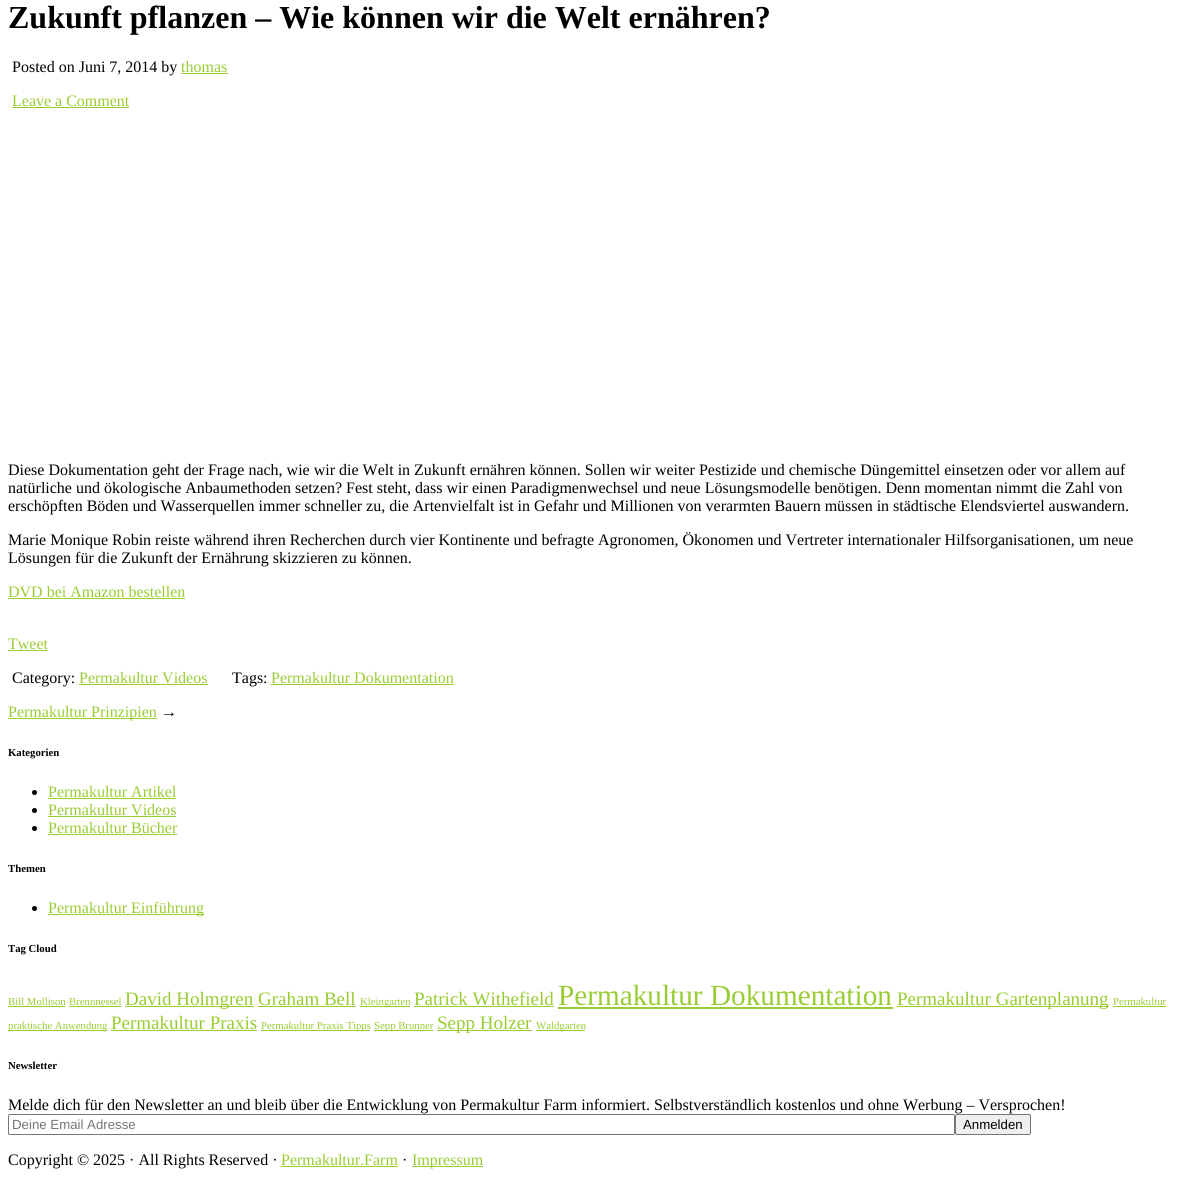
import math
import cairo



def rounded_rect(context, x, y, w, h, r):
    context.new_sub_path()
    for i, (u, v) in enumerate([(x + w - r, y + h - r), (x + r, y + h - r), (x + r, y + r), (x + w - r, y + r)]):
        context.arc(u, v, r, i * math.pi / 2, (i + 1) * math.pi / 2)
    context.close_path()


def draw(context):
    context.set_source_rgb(1, 1, 1)
    context.paint()
    context.set_source_rgb(153 / 255, 204 / 255, 51 / 255)
    context.rectangle(181, 73, 47, 1)
    context.fill()
    context.rectangle(12, 107, 117, 1)
    context.fill()
    context.rectangle(8, 598, 177, 1)
    context.fill()
    context.rectangle(8, 650, 40, 1)
    context.fill()
    context.rectangle(79, 684, 129, 1)
    context.fill()
    context.rectangle(271, 684, 183, 1)
    context.fill()
    context.rectangle(8, 718, 149, 1)
    context.fill()
    context.set_source_rgb(0, 0, 0)
    context.arc(34.5, 792.5, 2.5, 0, 2 * math.pi)
    context.fill()
    context.set_source_rgb(153 / 255, 204 / 255, 51 / 255)
    context.rectangle(48, 798, 128, 1)
    context.fill()
    context.set_source_rgb(0, 0, 0)
    context.arc(34.5, 810.5, 2.5, 0, 2 * math.pi)
    context.fill()
    context.set_source_rgb(153 / 255, 204 / 255, 51 / 255)
    context.rectangle(48, 816, 128, 1)
    context.fill()
    context.set_source_rgb(0, 0, 0)
    context.arc(34.5, 828.5, 2.5, 0, 2 * math.pi)
    context.fill()
    context.set_source_rgb(153 / 255, 204 / 255, 51 / 255)
    context.rectangle(48, 834, 129, 1)
    context.fill()
    context.set_source_rgb(0, 0, 0)
    context.arc(34.5, 908.5, 2.5, 0, 2 * math.pi)
    context.fill()
    context.set_source_rgb(153 / 255, 204 / 255, 51 / 255)
    context.rectangle(48, 914, 156, 1)
    context.fill()
    context.rectangle(8, 1006, 57, 1)
    context.fill()
    context.rectangle(69, 1006, 52, 1)
    context.fill()
    context.rectangle(125, 1006, 129, 1)
    context.fill()
    context.rectangle(258, 1006, 98, 1)
    context.fill()
    context.rectangle(360, 1006, 50, 1)
    context.fill()
    context.rectangle(414, 1006, 140, 1)
    context.fill()
    context.rectangle(558, 1007, 335, 2)
    context.fill()
    context.rectangle(897, 1006, 212, 1)
    context.fill()
    context.rectangle(1113, 1006, 53, 1)
    context.fill()
    context.rectangle(8, 1030, 99, 1)
    context.fill()
    context.rectangle(111, 1030, 146, 1)
    context.fill()
    context.rectangle(261, 1030, 109, 1)
    context.fill()
    context.rectangle(374, 1030, 59, 1)
    context.fill()
    context.rectangle(437, 1030, 95, 1)
    context.fill()
    context.rectangle(536, 1030, 49, 1)
    context.fill()
    rounded_rect(context, 8.5, 1114.5, 946, 20, 1.5)
    context.set_source_rgb(118 / 255, 118 / 255, 118 / 255)
    context.set_line_width(1)
    context.stroke()
    context.set_source_rgb(239 / 255, 239 / 255, 239 / 255)
    rounded_rect(context, 955.5, 1114.5, 75, 20, 1.5)
    context.fill_preserve()
    context.set_source_rgb(118 / 255, 118 / 255, 118 / 255)
    context.stroke()
    context.set_source_rgb(153 / 255, 204 / 255, 51 / 255)
    context.rectangle(281, 1166, 117, 1)
    context.fill()
    context.rectangle(412, 1166, 71, 1)
    context.fill()
    context.select_font_face("Liberation Serif", cairo.FontSlant.NORMAL, cairo.FontWeight.BOLD)
    context.set_font_size(32)
    context.set_source_rgb(0, 0, 0)
    context.move_to(8, 28)
    context.show_text("Zukunft pflanzen – Wie können wir die Welt ernähren?")
    context.select_font_face("Liberation Serif")
    context.set_font_size(16)
    context.move_to(12, 72)
    context.show_text("Posted on Juni 7, 2014 by")
    context.set_source_rgb(153 / 255, 204 / 255, 51 / 255)
    context.move_to(181, 72)
    context.show_text("thomas")
    context.move_to(12, 106)
    context.show_text("Leave a Comment")
    context.set_source_rgb(0, 0, 0)
    context.move_to(8, 475)
    context.show_text("Diese Dokumentation geht der Frage nach, wie wir die Welt in Zukunft ernähren können. Sollen wir weiter Pestizide und chemische Düngemittel einsetzen oder vor allem auf")
    context.move_to(8, 493)
    context.show_text("natürliche und ökologische Anbaumethoden setzen? Fest steht, dass wir einen Paradigmenwechsel und neue Lösungsmodelle benötigen. Denn momentan nimmt die Zahl von")
    context.move_to(8, 511)
    context.show_text("erschöpften Böden und Wasserquellen immer schneller zu, die Artenvielfalt ist in Gefahr und Millionen von verarmten Bauern müssen in städtische Elendsviertel auswandern.")
    context.move_to(8, 545)
    context.show_text("Marie Monique Robin reiste während ihren Recherchen durch vier Kontinente und befragte Agronomen, Ökonomen und Vertreter internationaler Hilfsorganisationen, um neue")
    context.move_to(8, 563)
    context.show_text("Lösungen für die Zukunft der Ernährung skizzieren zu können.")
    context.set_source_rgb(153 / 255, 204 / 255, 51 / 255)
    context.move_to(8, 597)
    context.show_text("DVD bei Amazon bestellen")
    context.move_to(8, 649)
    context.show_text("Tweet")
    context.set_source_rgb(0, 0, 0)
    context.move_to(12, 683)
    context.show_text("Category:")
    context.set_source_rgb(153 / 255, 204 / 255, 51 / 255)
    context.move_to(79, 683)
    context.show_text("Permakultur Videos")
    context.set_source_rgb(0, 0, 0)
    context.move_to(232, 683)
    context.show_text("Tags:")
    context.set_source_rgb(153 / 255, 204 / 255, 51 / 255)
    context.move_to(271, 683)
    context.show_text("Permakultur Dokumentation")
    context.move_to(8, 717)
    context.show_text("Permakultur Prinzipien")
    context.set_source_rgb(0, 0, 0)
    context.move_to(161, 717)
    context.show_text("→")
    context.select_font_face("Liberation Serif", cairo.FontSlant.NORMAL, cairo.FontWeight.BOLD)
    context.set_font_size(10.75)
    context.move_to(8, 756)
    context.show_text("Kategorien")
    context.select_font_face("Liberation Serif")
    context.set_font_size(16)
    context.set_source_rgb(153 / 255, 204 / 255, 51 / 255)
    context.move_to(48, 797)
    context.show_text("Permakultur Artikel")
    context.move_to(48, 815)
    context.show_text("Permakultur Videos")
    context.move_to(48, 833)
    context.show_text("Permakultur Bücher")
    context.select_font_face("Liberation Serif", cairo.FontSlant.NORMAL, cairo.FontWeight.BOLD)
    context.set_font_size(10.75)
    context.set_source_rgb(0, 0, 0)
    context.move_to(8, 872)
    context.show_text("Themen")
    context.select_font_face("Liberation Serif")
    context.set_font_size(16)
    context.set_source_rgb(153 / 255, 204 / 255, 51 / 255)
    context.move_to(48, 913)
    context.show_text("Permakultur Einführung")
    context.select_font_face("Liberation Serif", cairo.FontSlant.NORMAL, cairo.FontWeight.BOLD)
    context.set_font_size(10.75)
    context.set_source_rgb(0, 0, 0)
    context.move_to(8, 952)
    context.show_text("Tag Cloud")
    context.select_font_face("Liberation Serif")
    context.set_source_rgb(153 / 255, 204 / 255, 51 / 255)
    context.move_to(8, 1005)
    context.show_text("Bill Mollison")
    context.move_to(69, 1005)
    context.show_text("Brennnessel")
    context.set_font_size(19)
    context.move_to(125, 1005)
    context.show_text("David Holmgren")
    context.move_to(258, 1005)
    context.show_text("Graham Bell")
    context.set_font_size(10.75)
    context.move_to(360, 1005)
    context.show_text("Kleingarten")
    context.set_font_size(19)
    context.move_to(414, 1005)
    context.show_text("Patrick Withefield")
    context.set_font_size(29.25)
    context.move_to(558, 1005)
    context.show_text("Permakultur Dokumentation")
    context.set_font_size(19)
    context.move_to(897, 1005)
    context.show_text("Permakultur Gartenplanung")
    context.set_font_size(10.75)
    context.move_to(1113, 1005)
    context.show_text("Permakultur")
    context.move_to(8, 1029)
    context.show_text("praktische Anwendung")
    context.set_font_size(19)
    context.move_to(111, 1029)
    context.show_text("Permakultur Praxis")
    context.set_font_size(10.75)
    context.move_to(261, 1029)
    context.show_text("Permakultur Praxis Tipps")
    context.move_to(374, 1029)
    context.show_text("Sepp Brunner")
    context.set_font_size(19)
    context.move_to(437, 1029)
    context.show_text("Sepp Holzer")
    context.set_font_size(10.75)
    context.move_to(536, 1029)
    context.show_text("Waldgarten")
    context.select_font_face("Liberation Serif", cairo.FontSlant.NORMAL, cairo.FontWeight.BOLD)
    context.set_source_rgb(0, 0, 0)
    context.move_to(8, 1069)
    context.show_text("Newsletter")
    context.select_font_face("Liberation Serif")
    context.set_font_size(16)
    context.move_to(8, 1110)
    context.show_text("Melde dich für den Newsletter an und bleib über die Entwicklung von Permakultur Farm informiert. Selbstverständlich kostenlos und ohne Werbung – Versprochen!")
    context.select_font_face("Liberation Sans")
    context.set_font_size(13.25)
    context.set_source_rgb(117 / 255, 117 / 255, 117 / 255)
    context.move_to(12, 1129)
    context.show_text("Deine Email Adresse")
    context.set_source_rgb(0, 0, 0)
    context.move_to(963, 1129)
    context.show_text("Anmelden")
    context.select_font_face("Liberation Serif")
    context.set_font_size(16)
    context.move_to(8, 1165)
    context.show_text("Copyright © 2025 · All Rights Reserved ·")
    context.set_source_rgb(153 / 255, 204 / 255, 51 / 255)
    context.move_to(281, 1165)
    context.show_text("Permakultur.Farm")
    context.set_source_rgb(0, 0, 0)
    context.move_to(402, 1165)
    context.show_text("·")
    context.set_source_rgb(153 / 255, 204 / 255, 51 / 255)
    context.move_to(412, 1165)
    context.show_text("Impressum")


surface = cairo.ImageSurface(cairo.Format.RGB24, 1190, 1185)
context = cairo.Context(surface)
options = cairo.FontOptions()
options.set_hint_metrics(cairo.HintMetrics.OFF)
options.set_hint_style(cairo.HintStyle.NONE)
context.set_font_options(options)
context.set_miter_limit(4)
draw(context)
surface.write_to_png("out.png")
